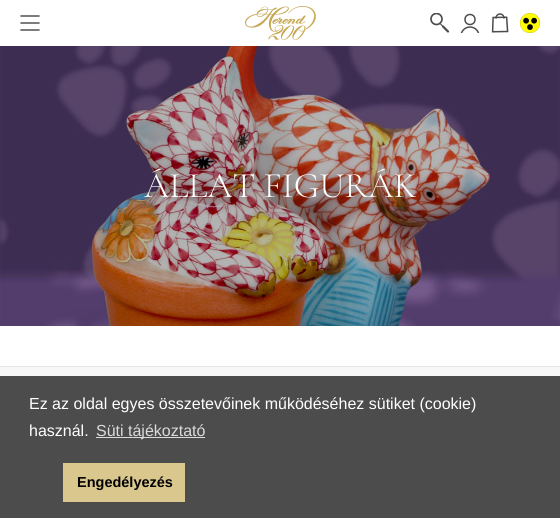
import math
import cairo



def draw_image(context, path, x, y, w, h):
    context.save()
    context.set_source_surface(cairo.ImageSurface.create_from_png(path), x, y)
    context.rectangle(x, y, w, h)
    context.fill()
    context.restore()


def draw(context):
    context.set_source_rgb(1, 1, 1)
    context.paint()
    draw_image(context, "images/1.png", 20, 15, 20, 16)
    draw_image(context, "images/2.png", 245, 6, 71, 34)
    context.new_path()
    context.move_to(443, 26.5)
    context.line_to(448, 31.5)
    context.set_source_rgb(76 / 255, 76 / 255, 76 / 255)
    context.set_line_width(2.2)
    context.set_line_cap(cairo.LineCap.ROUND)
    context.set_line_join(cairo.LineJoin.ROUND)
    context.stroke()
    context.new_path()
    context.move_to(442.5, 26)
    context.line_to(440, 23.5)
    context.set_line_width(1.1)
    context.stroke()
    context.save()
    context.rectangle(430, 13, 20, 20)
    context.clip()
    context.arc(436.5, 19, 5.5, 0, 2 * math.pi)
    context.set_line_width(1.7)
    context.set_line_cap(cairo.LineCap.BUTT)
    context.set_line_join(cairo.LineJoin.MITER)
    context.stroke()
    context.restore()
    context.save()
    context.rectangle(460, 13, 20, 20)
    context.clip()
    context.arc(470, 36, 9, 0, 2 * math.pi)
    context.set_line_width(1.5)
    context.set_line_cap(cairo.LineCap.BUTT)
    context.set_line_join(cairo.LineJoin.MITER)
    context.stroke()
    context.restore()
    context.arc(470, 19.5, 5, 0, 2 * math.pi)
    context.set_line_width(1.5)
    context.set_line_cap(cairo.LineCap.BUTT)
    context.set_line_join(cairo.LineJoin.MITER)
    context.stroke()
    draw_image(context, "images/3.png", 491, 13, 18, 20)
    draw_image(context, "images/4.png", 520, 13, 20, 20)
    draw_image(context, "images/5.png", 0, 46, 560, 280)
    context.set_source_rgb(229 / 255, 229 / 255, 229 / 255)
    context.rectangle(0, 366, 560, 1)
    context.fill()
    context.set_source_rgb(247 / 255, 247 / 255, 247 / 255)
    context.rectangle(0, 367, 560, 9)
    context.fill()
    context.set_source_rgb(76 / 255, 76 / 255, 76 / 255)
    context.rectangle(0, 376, 560, 142)
    context.fill()
    context.set_source_rgb(219 / 255, 219 / 255, 219 / 255)
    context.rectangle(96, 437, 109, 1)
    context.fill()
    context.set_source_rgb(218 / 255, 199 / 255, 142 / 255)
    context.rectangle(63, 463, 122, 39)
    context.fill()
    context.select_font_face("Cormorant Garamond Light")
    context.set_font_size(36)
    context.set_source_rgb(1, 1, 1)
    context.move_to(144, 197)
    context.show_text("ÁLLAT FIGURÁK")
    context.select_font_face("Liberation Sans")
    context.set_font_size(16)
    context.move_to(29, 409)
    context.show_text("Ez az oldal egyes összetevőinek működéséhez sütiket (cookie)")
    context.move_to(29, 436)
    context.show_text("használ.")
    context.set_source_rgb(219 / 255, 219 / 255, 219 / 255)
    context.move_to(96, 436)
    context.show_text("Süti tájékoztató")
    context.select_font_face("Liberation Sans", cairo.FontSlant.NORMAL, cairo.FontWeight.BOLD)
    context.set_font_size(14.5)
    context.set_source_rgb(0, 0, 0)
    context.move_to(77, 487)
    context.show_text("Engedélyezés")


surface = cairo.ImageSurface(cairo.Format.RGB24, 560, 518)
context = cairo.Context(surface)
options = cairo.FontOptions()
options.set_hint_metrics(cairo.HintMetrics.OFF)
options.set_hint_style(cairo.HintStyle.NONE)
context.set_font_options(options)
context.set_miter_limit(4)
draw(context)
surface.write_to_png("out.png")
